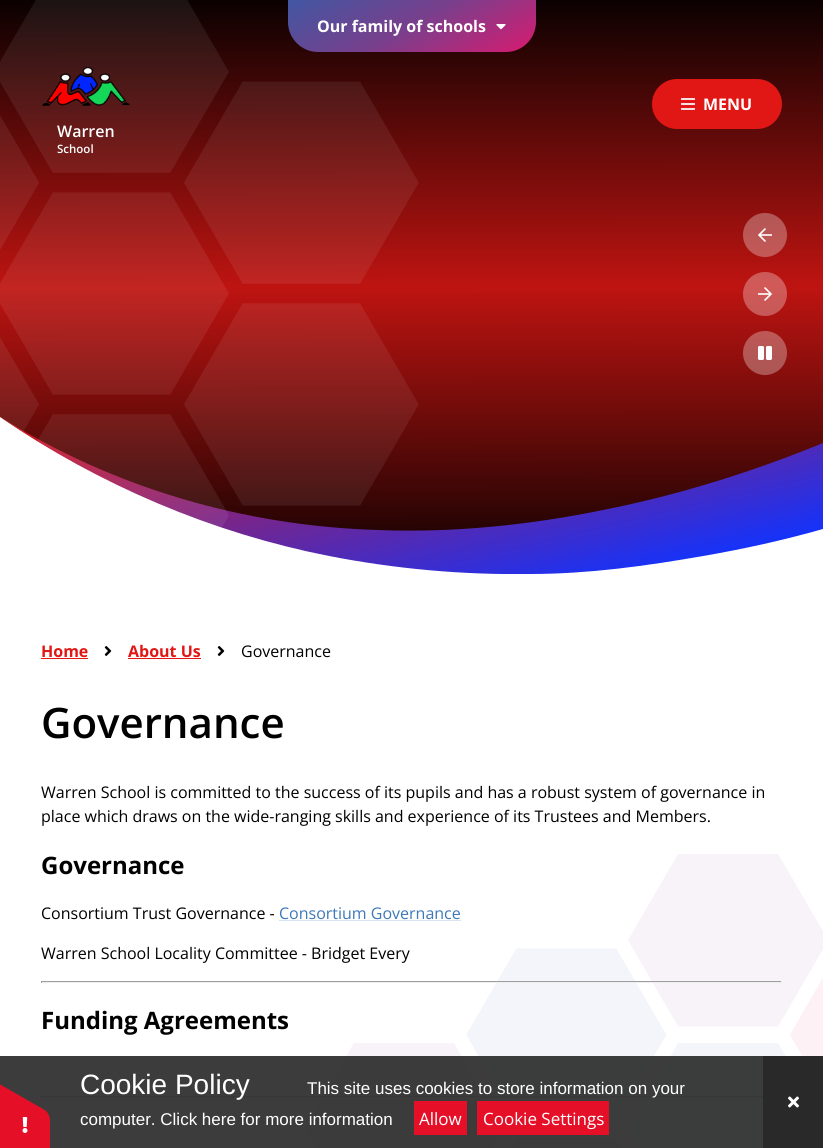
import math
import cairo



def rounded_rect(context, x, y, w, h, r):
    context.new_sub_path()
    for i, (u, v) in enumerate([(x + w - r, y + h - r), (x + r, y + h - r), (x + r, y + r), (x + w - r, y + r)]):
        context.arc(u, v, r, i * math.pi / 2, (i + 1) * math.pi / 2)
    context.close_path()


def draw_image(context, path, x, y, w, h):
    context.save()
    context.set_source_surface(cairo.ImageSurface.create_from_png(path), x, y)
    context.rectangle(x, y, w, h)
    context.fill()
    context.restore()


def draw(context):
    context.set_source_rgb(1, 1, 1)
    context.paint()
    gradient = cairo.LinearGradient(411, 0, 412, 574)
    gradient.add_color_stop_rgba(0, 11 / 255, 1 / 255, 1 / 255, 1)
    gradient.add_color_stop_rgba(0.5, 190 / 255, 20 / 255, 17 / 255, 1)
    gradient.add_color_stop_rgba(1, 11 / 255, 1 / 255, 1 / 255, 1)
    context.set_source(gradient)
    context.rectangle(0, 0, 823, 531)
    context.fill()
    context.save()
    context.rectangle(0, 417, 823, 157)
    context.clip()
    context.set_source_rgb(1, 1, 1)
    context.new_path()
    context.move_to(823, 522)
    context.line_to(823, 575)
    context.line_to(0, 575)
    context.line_to(0, 417)
    context.curve_to(27, 435, 55, 452, 83, 467)
    context.curve_to(83, 467, 184, 519, 307, 546)
    context.curve_to(527, 594, 794, 529, 823, 522)
    context.close_path()
    context.fill()
    gradient = cairo.LinearGradient(12, 414, 85, 716)
    gradient.add_color_stop_rgba(0, 224 / 255, 23 / 255, 20 / 255, 1)
    gradient.add_color_stop_rgba(1, 16 / 255, 51 / 255, 1, 1)
    context.set_source(gradient)
    context.new_path()
    context.move_to(823, 443)
    context.line_to(823, 529)
    context.curve_to(784, 540, 744, 549, 703, 556)
    context.curve_to(646, 566, 588, 574, 530, 574)
    context.curve_to(463, 575, 396, 569, 329, 556)
    context.curve_to(212, 533, 99, 485, 0, 417)
    context.curve_to(114, 488, 244, 526, 378, 530)
    context.curve_to(453, 533, 530, 525, 603, 510)
    context.curve_to(679, 495, 752, 472, 823, 443)
    context.close_path()
    context.fill()
    context.restore()
    draw_image(context, "images/1.png", 0, 0, 419, 528)
    context.set_source_rgba(1, 1, 1, 0.3)
    context.arc(765, 235, 22, 0, 2 * math.pi)
    context.fill()
    draw_image(context, "images/2.png", 758, 228, 14, 14)
    context.arc(765, 294, 22, 0, 2 * math.pi)
    context.fill()
    draw_image(context, "images/3.png", 758, 287, 14, 14)
    context.arc(765, 353, 22, 0, 2 * math.pi)
    context.fill()
    draw_image(context, "images/4.png", 758, 346, 14, 14)
    gradient = cairo.LinearGradient(455, 99, 369, -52)
    gradient.add_color_stop_rgba(0, 218 / 255, 26 / 255, 111 / 255, 1)
    gradient.add_color_stop_rgba(0.49, 121 / 255, 63 / 255, 140 / 255, 1)
    gradient.add_color_stop_rgba(1, 62 / 255, 88 / 255, 163 / 255, 1)
    context.set_source(gradient)
    context.new_path()
    context.move_to(288, 0)
    context.line_to(536, 0)
    context.line_to(536, 22)
    context.curve_to(536, 38.5, 522.5, 52, 506, 52)
    context.line_to(318, 52)
    context.curve_to(301.5, 52, 288, 38.5, 288, 22)
    context.close_path()
    context.fill()
    draw_image(context, "images/5.png", 496, 24, 10, 6)
    context.set_source_rgb(224 / 255, 23 / 255, 20 / 255)
    rounded_rect(context, 652, 79, 130, 50, 25)
    context.fill()
    draw_image(context, "images/6.png", 681, 98, 14, 12)
    draw_image(context, "images/7.png", 42, 67, 88, 39)
    context.rectangle(41, 658, 47, 1)
    context.fill()
    draw_image(context, "images/8.png", 104, 646, 8, 10)
    context.rectangle(128, 658, 73, 1)
    context.fill()
    draw_image(context, "images/8.png", 217, 646, 8, 10)
    draw_image(context, "images/9.png", 304, 854, 519, 294)
    context.set_source_rgb(216 / 255, 228 / 255, 241 / 255)
    context.rectangle(279, 920, 182, 1)
    context.fill()
    context.set_source_rgb(159 / 255, 159 / 255, 159 / 255)
    context.rectangle(41, 981, 741, 1)
    context.fill()
    context.set_source_rgb(238 / 255, 238 / 255, 238 / 255)
    context.rectangle(781, 981, 1, 2)
    context.fill()
    context.rectangle(41, 982, 741, 1)
    context.fill()
    context.set_source_rgb(159 / 255, 159 / 255, 159 / 255)
    context.rectangle(41, 981, 1, 2)
    context.fill()
    context.set_source_rgb(210 / 255, 218 / 255, 235 / 255)
    context.rectangle(406, 1075, 35, 1)
    context.fill()
    context.set_source_rgb(159 / 255, 159 / 255, 159 / 255)
    context.rectangle(41, 1096, 722, 1)
    context.fill()
    context.set_source_rgb(238 / 255, 238 / 255, 238 / 255)
    context.rectangle(41, 1097, 722, 1)
    context.fill()
    context.set_source_rgb(159 / 255, 159 / 255, 159 / 255)
    context.rectangle(41, 1096, 1, 2)
    context.fill()
    context.set_source_rgba(51 / 255, 51 / 255, 51 / 255, 0.95)
    context.rectangle(0, 1056, 763, 92)
    context.fill()
    context.set_source_rgb(229 / 255, 15 / 255, 40 / 255)
    context.new_path()
    context.move_to(50, 1121)
    context.line_to(50, 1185)
    context.curve_to(50, 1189, 48, 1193, 46, 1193)
    context.line_to(-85, 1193)
    context.curve_to(-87, 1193, -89, 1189, -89, 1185)
    context.line_to(-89, 1121)
    context.curve_to(-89, 1116, -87, 1113, -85, 1113)
    context.line_to(46, 1113)
    context.curve_to(48, 1113, 50, 1116, 50, 1121)
    context.close_path()
    context.fill()
    context.new_path()
    context.move_to(-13, 1077)
    context.line_to(43, 1109)
    context.curve_to(47, 1111, 49, 1114, 48, 1116)
    context.line_to(-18, 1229)
    context.curve_to(-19, 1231, -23, 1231, -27, 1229)
    context.line_to(-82, 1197)
    context.curve_to(-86, 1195, -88, 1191, -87, 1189)
    context.line_to(-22, 1076)
    context.curve_to(-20, 1074, -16, 1075, -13, 1077)
    context.close_path()
    context.fill()
    draw_image(context, "images/10.png", 22, 1117, 6, 16)
    context.rectangle(414, 1101, 53, 34)
    context.fill()
    context.rectangle(477, 1101, 132, 34)
    context.fill()
    context.set_source_rgb(41 / 255, 41 / 255, 41 / 255)
    context.rectangle(763, 1056, 60, 92)
    context.fill()
    draw_image(context, "images/11.png", 788, 1096, 11, 12)
    context.select_font_face("Open Sans", cairo.FontSlant.NORMAL, cairo.FontWeight.BOLD)
    context.set_font_size(16)
    context.set_source_rgb(1, 1, 1)
    context.move_to(317, 32)
    context.show_text("Our family of schools")
    context.move_to(703, 110)
    context.show_text("MENU")
    context.select_font_face("Open Sans SemiBold")
    context.move_to(57, 137)
    context.show_text("Warren")
    context.set_font_size(11.5)
    context.move_to(57, 153)
    context.show_text("School")
    context.select_font_face("Open Sans", cairo.FontSlant.NORMAL, cairo.FontWeight.BOLD)
    context.set_font_size(16)
    context.set_source_rgb(224 / 255, 23 / 255, 20 / 255)
    context.move_to(41, 657)
    context.show_text("Home")
    context.move_to(128, 657)
    context.show_text("About Us")
    context.select_font_face("Open Sans")
    context.set_source_rgb(0, 0, 0)
    context.move_to(241, 657)
    context.show_text("Governance")
    context.select_font_face("Open Sans SemiBold")
    context.set_font_size(42)
    context.move_to(41, 738)
    context.show_text("Governance")
    context.select_font_face("Open Sans")
    context.set_font_size(16)
    context.move_to(41, 798)
    context.show_text("Warren School is committed to the success of its pupils and has a robust system of governance in")
    context.move_to(41, 822)
    context.show_text("place which draws on the wide-ranging skills and experience of its Trustees and Members.")
    context.select_font_face("Open Sans", cairo.FontSlant.NORMAL, cairo.FontWeight.BOLD)
    context.set_font_size(24)
    context.move_to(41, 874)
    context.show_text("Governance")
    context.select_font_face("Open Sans")
    context.set_font_size(16)
    context.move_to(41, 919)
    context.show_text("Consortium Trust Governance -")
    context.set_source_rgb(61 / 255, 120 / 255, 184 / 255)
    context.move_to(279, 919)
    context.show_text("Consortium Governance")
    context.set_source_rgb(0, 0, 0)
    context.move_to(41, 959)
    context.show_text("Warren School Locality Committee - Bridget Every")
    context.select_font_face("Open Sans", cairo.FontSlant.NORMAL, cairo.FontWeight.BOLD)
    context.set_font_size(24)
    context.move_to(41, 1029)
    context.show_text("Funding Agreements")
    context.select_font_face("Liberation Sans")
    context.set_font_size(28)
    context.set_source_rgb(1, 1, 1)
    context.move_to(80, 1094)
    context.show_text("Cookie Policy")
    context.set_font_size(17)
    context.move_to(307, 1094)
    context.show_text("This site uses cookies to store information on your")
    context.move_to(80, 1125)
    context.show_text("computer. Click here for more information")
    context.select_font_face("Open Sans")
    context.move_to(419, 1125)
    context.show_text("Allow")
    context.move_to(483, 1125)
    context.show_text("Cookie Settings")


surface = cairo.ImageSurface(cairo.Format.RGB24, 823, 1148)
context = cairo.Context(surface)
options = cairo.FontOptions()
options.set_hint_metrics(cairo.HintMetrics.OFF)
options.set_hint_style(cairo.HintStyle.NONE)
context.set_font_options(options)
context.set_miter_limit(4)
draw(context)
surface.write_to_png("out.png")
